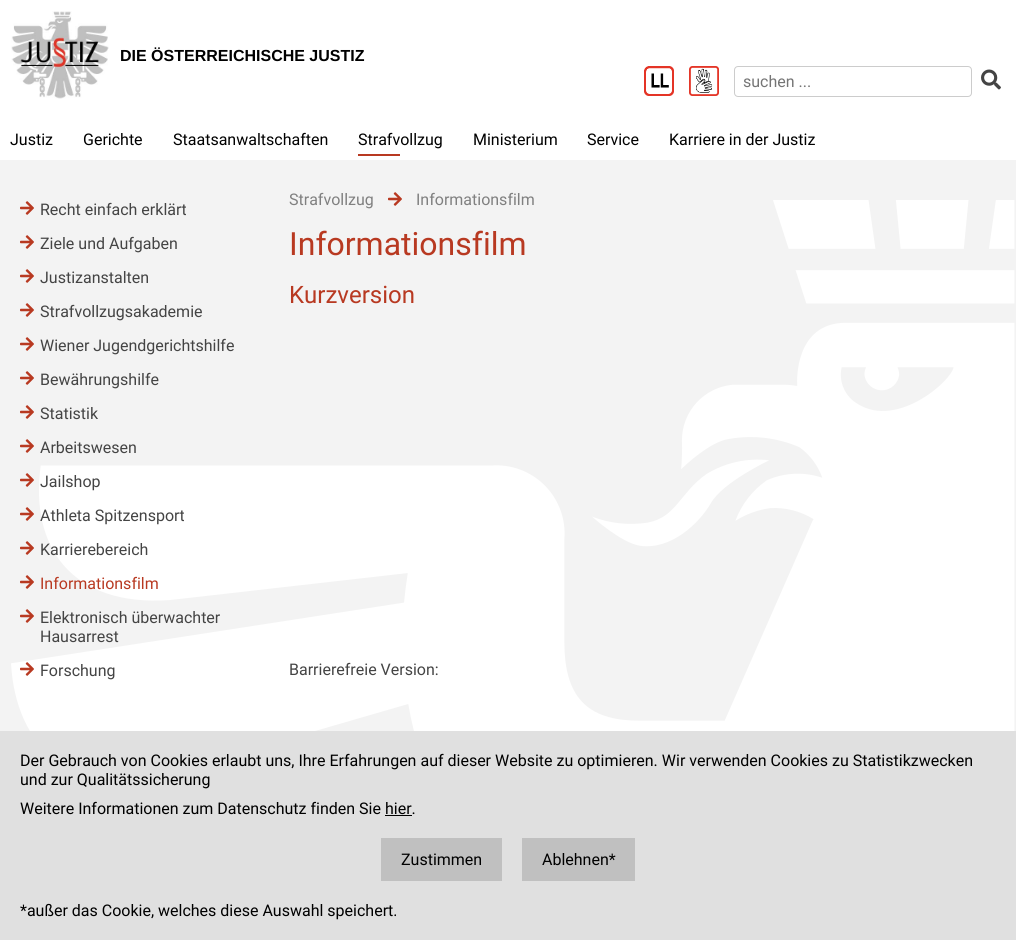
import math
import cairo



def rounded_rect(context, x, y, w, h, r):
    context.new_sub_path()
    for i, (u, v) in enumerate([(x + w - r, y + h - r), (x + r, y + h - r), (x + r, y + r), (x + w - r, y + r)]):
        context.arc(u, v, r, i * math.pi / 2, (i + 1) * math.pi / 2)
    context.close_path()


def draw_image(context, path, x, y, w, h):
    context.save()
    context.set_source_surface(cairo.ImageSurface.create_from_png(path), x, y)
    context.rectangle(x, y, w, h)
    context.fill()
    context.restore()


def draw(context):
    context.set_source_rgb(1, 1, 1)
    context.paint()
    draw_image(context, "images/1.png", 11, 11, 98, 88)
    draw_image(context, "images/2.png", 644, 66, 30, 30)
    draw_image(context, "images/3.png", 689, 66, 30, 30)
    rounded_rect(context, 734.5, 66.5, 237, 30, 3.5)
    context.set_source_rgb(204 / 255, 204 / 255, 204 / 255)
    context.set_line_width(1)
    context.stroke()
    draw_image(context, "images/4.png", 981, 69, 20, 21)
    context.set_source_rgb(184 / 255, 57 / 255, 33 / 255)
    context.rectangle(358, 154, 42, 2)
    context.fill()
    context.set_source_rgb(243 / 255, 243 / 255, 243 / 255)
    context.rectangle(0, 160, 1016, 571)
    context.fill()
    draw_image(context, "images/5.png", 11, 200, 1004, 531)
    draw_image(context, "images/6.png", 20, 201, 14, 14)
    draw_image(context, "images/6.png", 20, 235, 14, 14)
    draw_image(context, "images/6.png", 20, 269, 14, 14)
    draw_image(context, "images/6.png", 20, 303, 14, 14)
    draw_image(context, "images/6.png", 20, 337, 14, 14)
    draw_image(context, "images/6.png", 20, 371, 14, 14)
    draw_image(context, "images/6.png", 20, 405, 14, 14)
    draw_image(context, "images/6.png", 20, 439, 14, 14)
    draw_image(context, "images/6.png", 20, 473, 14, 14)
    draw_image(context, "images/6.png", 20, 507, 14, 14)
    draw_image(context, "images/6.png", 20, 541, 14, 14)
    draw_image(context, "images/6.png", 20, 575, 14, 14)
    draw_image(context, "images/6.png", 20, 609, 14, 14)
    draw_image(context, "images/7.png", 20, 662, 14, 14)
    draw_image(context, "images/6.png", 388, 192, 14, 14)
    context.set_source_rgb(224 / 255, 224 / 255, 224 / 255)
    context.rectangle(0, 731, 1016, 209)
    context.fill()
    context.set_source_rgb(0, 0, 0)
    context.rectangle(385, 815, 27, 1)
    context.fill()
    context.set_source_rgb(192 / 255, 192 / 255, 192 / 255)
    context.rectangle(381, 838, 121, 43)
    context.fill()
    context.rectangle(522, 838, 113, 43)
    context.fill()
    context.select_font_face("Liberation Sans", cairo.FontSlant.NORMAL, cairo.FontWeight.BOLD)
    context.set_font_size(16)
    context.set_source_rgb(0, 0, 0)
    context.move_to(120, 61)
    context.show_text("DIE ÖSTERREICHISCHE JUSTIZ")
    context.select_font_face("Roboto")
    context.set_source_rgb(117 / 255, 117 / 255, 117 / 255)
    context.move_to(743, 87)
    context.show_text("suchen ...")
    context.set_source_rgb(0, 0, 0)
    context.move_to(10, 145)
    context.show_text("Justiz")
    context.move_to(83, 145)
    context.show_text("Gerichte")
    context.move_to(173, 145)
    context.show_text("Staatsanwaltschaften")
    context.move_to(358, 145)
    context.show_text("Strafvollzug")
    context.move_to(473, 145)
    context.show_text("Ministerium")
    context.move_to(587, 145)
    context.show_text("Service")
    context.move_to(669, 145)
    context.show_text("Karriere in der Justiz")
    context.set_source_rgb(68 / 255, 68 / 255, 68 / 255)
    context.move_to(40, 215)
    context.show_text("Recht einfach erklärt")
    context.move_to(40, 249)
    context.show_text("Ziele und Aufgaben")
    context.move_to(40, 283)
    context.show_text("Justizanstalten")
    context.move_to(40, 317)
    context.show_text("Strafvollzugsakademie")
    context.move_to(40, 351)
    context.show_text("Wiener Jugendgerichtshilfe")
    context.move_to(40, 385)
    context.show_text("Bewährungshilfe")
    context.move_to(40, 419)
    context.show_text("Statistik")
    context.move_to(40, 453)
    context.show_text("Arbeitswesen")
    context.move_to(40, 487)
    context.show_text("Jailshop")
    context.move_to(40, 521)
    context.show_text("Athleta Spitzensport")
    context.move_to(40, 555)
    context.show_text("Karrierebereich")
    context.set_source_rgb(184 / 255, 57 / 255, 33 / 255)
    context.move_to(40, 589)
    context.show_text("Informationsfilm")
    context.set_source_rgb(68 / 255, 68 / 255, 68 / 255)
    context.move_to(40, 623)
    context.show_text("Elektronisch überwachter")
    context.move_to(40, 642)
    context.show_text("Hausarrest")
    context.move_to(40, 676)
    context.show_text("Forschung")
    context.set_source_rgb(128 / 255, 128 / 255, 128 / 255)
    context.move_to(289, 205)
    context.show_text("Strafvollzug")
    context.move_to(416, 205)
    context.show_text("Informationsfilm")
    context.set_font_size(32)
    context.set_source_rgb(184 / 255, 57 / 255, 33 / 255)
    context.move_to(289, 255)
    context.show_text("Informationsfilm")
    context.set_font_size(24)
    context.move_to(289, 303)
    context.show_text("Kurzversion")
    context.set_font_size(16)
    context.set_source_rgb(68 / 255, 68 / 255, 68 / 255)
    context.move_to(289, 675)
    context.show_text("Barrierefreie Version:")
    context.set_source_rgb(0, 0, 0)
    context.move_to(20, 766)
    context.show_text("Der Gebrauch von Cookies erlaubt uns, Ihre Erfahrungen auf dieser Website zu optimieren. Wir verwenden Cookies zu Statistikzwecken")
    context.move_to(20, 785)
    context.show_text("und zur Qualitätssicherung")
    context.move_to(20, 814)
    context.show_text("Weitere Informationen zum Datenschutz finden Sie hier.")
    context.move_to(401, 865)
    context.show_text("Zustimmen")
    context.move_to(542, 865)
    context.show_text("Ablehnen*")
    context.move_to(20, 916)
    context.show_text("*außer das Cookie, welches diese Auswahl speichert.")


surface = cairo.ImageSurface(cairo.Format.RGB24, 1016, 940)
context = cairo.Context(surface)
options = cairo.FontOptions()
options.set_hint_metrics(cairo.HintMetrics.OFF)
options.set_hint_style(cairo.HintStyle.NONE)
context.set_font_options(options)
context.set_miter_limit(4)
draw(context)
surface.write_to_png("out.png")
